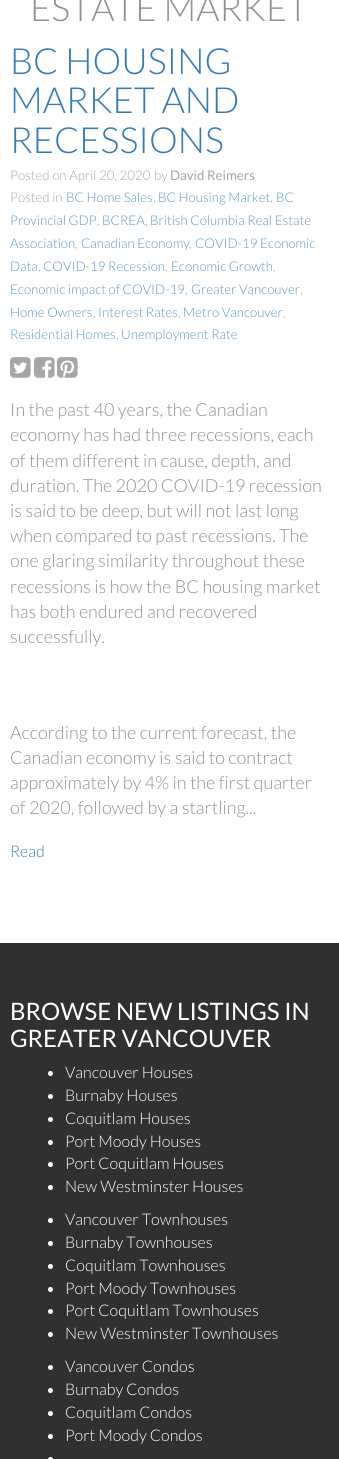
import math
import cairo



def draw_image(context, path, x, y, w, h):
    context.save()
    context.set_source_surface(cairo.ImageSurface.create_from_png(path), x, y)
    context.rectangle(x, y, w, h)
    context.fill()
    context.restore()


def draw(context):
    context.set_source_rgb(1, 1, 1)
    context.paint()
    draw_image(context, "images/1.png", 10, 357, 21, 21)
    draw_image(context, "images/2.png", 34, 357, 21, 21)
    draw_image(context, "images/3.png", 57, 357, 21, 21)
    context.set_source_rgb(48 / 255, 48 / 255, 48 / 255)
    context.rectangle(0, 943, 339, 516)
    context.fill()
    context.set_source_rgb(1, 1, 1)
    context.arc(50.5, 1073.5, 2.5, 0, 2 * math.pi)
    context.fill()
    context.arc(50.5, 1096.5, 2.5, 0, 2 * math.pi)
    context.fill()
    context.arc(50.5, 1119.5, 2.5, 0, 2 * math.pi)
    context.fill()
    context.arc(50.5, 1142.5, 2.5, 0, 2 * math.pi)
    context.fill()
    context.arc(50.5, 1164.5, 2.5, 0, 2 * math.pi)
    context.fill()
    context.arc(50.5, 1187.5, 2.5, 0, 2 * math.pi)
    context.fill()
    context.arc(50.5, 1220.5, 2.5, 0, 2 * math.pi)
    context.fill()
    context.arc(50.5, 1243.5, 2.5, 0, 2 * math.pi)
    context.fill()
    context.arc(50.5, 1266.5, 2.5, 0, 2 * math.pi)
    context.fill()
    context.arc(50.5, 1289.5, 2.5, 0, 2 * math.pi)
    context.fill()
    context.arc(50.5, 1311.5, 2.5, 0, 2 * math.pi)
    context.fill()
    context.arc(50.5, 1334.5, 2.5, 0, 2 * math.pi)
    context.fill()
    context.arc(50.5, 1367.5, 2.5, 0, 2 * math.pi)
    context.fill()
    context.arc(50.5, 1390.5, 2.5, 0, 2 * math.pi)
    context.fill()
    context.arc(50.5, 1413.5, 2.5, 0, 2 * math.pi)
    context.fill()
    context.arc(50.5, 1436.5, 2.5, 0, 2 * math.pi)
    context.fill()
    context.arc(50.5, 1459.5, 2.5, 0, 2 * math.pi)
    context.fill()
    context.select_font_face("Lato Light")
    context.set_font_size(36)
    context.set_source_rgb(144 / 255, 144 / 255, 144 / 255)
    context.move_to(30, 21)
    context.show_text("ESTATE MARKET")
    context.set_source_rgb(51 / 255, 122 / 255, 183 / 255)
    context.move_to(10, 74)
    context.show_text("BC HOUSING")
    context.move_to(10, 113)
    context.show_text("MARKET AND")
    context.move_to(10, 153)
    context.show_text("RECESSIONS")
    context.set_font_size(13.3)
    context.set_source_rgb(166 / 255, 166 / 255, 166 / 255)
    context.move_to(10, 180)
    context.show_text("Posted on April 20, 2020")
    context.move_to(154, 180)
    context.show_text("by")
    context.select_font_face("Lato")
    context.move_to(170, 180)
    context.show_text("David Reimers")
    context.select_font_face("Lato Light")
    context.move_to(10, 202)
    context.show_text("Posted in")
    context.set_source_rgb(92 / 255, 149 / 255, 197 / 255)
    context.move_to(66, 202)
    context.show_text("BC Home Sales")
    context.set_source_rgb(166 / 255, 166 / 255, 166 / 255)
    context.move_to(153, 202)
    context.show_text(",")
    context.set_source_rgb(92 / 255, 149 / 255, 197 / 255)
    context.move_to(158, 202)
    context.show_text("BC Housing Market")
    context.set_source_rgb(166 / 255, 166 / 255, 166 / 255)
    context.move_to(270, 202)
    context.show_text(",")
    context.set_source_rgb(92 / 255, 149 / 255, 197 / 255)
    context.move_to(276, 202)
    context.show_text("BC")
    context.move_to(10, 225)
    context.show_text("Provincial GDP")
    context.set_source_rgb(166 / 255, 166 / 255, 166 / 255)
    context.move_to(97, 225)
    context.show_text(",")
    context.set_source_rgb(92 / 255, 149 / 255, 197 / 255)
    context.move_to(102, 225)
    context.show_text("BCREA")
    context.set_source_rgb(166 / 255, 166 / 255, 166 / 255)
    context.move_to(145, 225)
    context.show_text(",")
    context.set_source_rgb(92 / 255, 149 / 255, 197 / 255)
    context.move_to(150, 225)
    context.show_text("British Columbia Real Estate")
    context.move_to(10, 248)
    context.show_text("Association")
    context.set_source_rgb(166 / 255, 166 / 255, 166 / 255)
    context.move_to(75, 248)
    context.show_text(",")
    context.set_source_rgb(92 / 255, 149 / 255, 197 / 255)
    context.move_to(81, 248)
    context.show_text("Canadian Economy")
    context.set_source_rgb(166 / 255, 166 / 255, 166 / 255)
    context.move_to(189, 248)
    context.show_text(",")
    context.set_source_rgb(92 / 255, 149 / 255, 197 / 255)
    context.move_to(195, 248)
    context.show_text("COVID-19 Economic")
    context.move_to(10, 271)
    context.show_text("Data")
    context.set_source_rgb(166 / 255, 166 / 255, 166 / 255)
    context.move_to(38, 271)
    context.show_text(",")
    context.set_source_rgb(92 / 255, 149 / 255, 197 / 255)
    context.move_to(43, 271)
    context.show_text("COVID-19 Recession")
    context.set_source_rgb(166 / 255, 166 / 255, 166 / 255)
    context.move_to(165, 271)
    context.show_text(",")
    context.set_source_rgb(92 / 255, 149 / 255, 197 / 255)
    context.move_to(171, 271)
    context.show_text("Economic Growth")
    context.set_source_rgb(166 / 255, 166 / 255, 166 / 255)
    context.move_to(273, 271)
    context.show_text(",")
    context.set_source_rgb(92 / 255, 149 / 255, 197 / 255)
    context.move_to(10, 294)
    context.show_text("Economic impact of COVID-19")
    context.set_source_rgb(166 / 255, 166 / 255, 166 / 255)
    context.move_to(185, 294)
    context.show_text(",")
    context.set_source_rgb(92 / 255, 149 / 255, 197 / 255)
    context.move_to(191, 294)
    context.show_text("Greater Vancouver")
    context.set_source_rgb(166 / 255, 166 / 255, 166 / 255)
    context.move_to(300, 294)
    context.show_text(",")
    context.set_source_rgb(92 / 255, 149 / 255, 197 / 255)
    context.move_to(10, 317)
    context.show_text("Home Owners")
    context.set_source_rgb(166 / 255, 166 / 255, 166 / 255)
    context.move_to(93, 317)
    context.show_text(",")
    context.set_source_rgb(92 / 255, 149 / 255, 197 / 255)
    context.move_to(98, 317)
    context.show_text("Interest Rates")
    context.set_source_rgb(166 / 255, 166 / 255, 166 / 255)
    context.move_to(178, 317)
    context.show_text(",")
    context.set_source_rgb(92 / 255, 149 / 255, 197 / 255)
    context.move_to(183, 317)
    context.show_text("Metro Vancouver")
    context.set_source_rgb(166 / 255, 166 / 255, 166 / 255)
    context.move_to(283, 317)
    context.show_text(",")
    context.set_source_rgb(92 / 255, 149 / 255, 197 / 255)
    context.move_to(10, 339)
    context.show_text("Residential Homes")
    context.set_source_rgb(166 / 255, 166 / 255, 166 / 255)
    context.move_to(116, 339)
    context.show_text(",")
    context.set_source_rgb(92 / 255, 149 / 255, 197 / 255)
    context.move_to(121, 339)
    context.show_text("Unemployment Rate")
    context.set_font_size(18)
    context.set_source_rgb(144 / 255, 144 / 255, 144 / 255)
    context.move_to(10, 416)
    context.show_text("In the past 40 years, the Canadian")
    context.move_to(10, 441)
    context.show_text("economy has had three recessions, each")
    context.move_to(10, 467)
    context.show_text("of them different in cause, depth, and")
    context.move_to(10, 492)
    context.show_text("duration. The 2020 COVID-19 recession")
    context.move_to(10, 517)
    context.show_text("is said to be deep, but will not last long")
    context.move_to(10, 542)
    context.show_text("when compared to past recessions. The")
    context.move_to(10, 567)
    context.show_text("one glaring similarity throughout these")
    context.move_to(10, 593)
    context.show_text("recessions is how the BC housing market")
    context.move_to(10, 618)
    context.show_text("has both endured and recovered")
    context.move_to(10, 643)
    context.show_text("successfully.")
    context.move_to(10, 739)
    context.show_text("According to the current forecast, the")
    context.move_to(10, 764)
    context.show_text("Canadian economy is said to contract")
    context.move_to(10, 789)
    context.show_text("approximately by 4% in the first quarter")
    context.move_to(10, 814)
    context.show_text("of 2020, followed by a startling...")
    context.set_font_size(16)
    context.set_source_rgb(51 / 255, 122 / 255, 183 / 255)
    context.move_to(10, 857)
    context.show_text("Read")
    context.select_font_face("Lato")
    context.set_font_size(24)
    context.set_source_rgb(1, 1, 1)
    context.move_to(10, 1020)
    context.show_text("BROWSE NEW LISTINGS IN")
    context.move_to(10, 1047)
    context.show_text("GREATER VANCOUVER")
    context.select_font_face("Lato Light")
    context.set_font_size(16)
    context.move_to(65, 1078)
    context.show_text("Vancouver Houses")
    context.move_to(65, 1101)
    context.show_text("Burnaby Houses")
    context.move_to(65, 1124)
    context.show_text("Coquitlam Houses")
    context.move_to(65, 1147)
    context.show_text("Port Moody Houses")
    context.move_to(65, 1169)
    context.show_text("Port Coquitlam Houses")
    context.move_to(65, 1192)
    context.show_text("New Westminster Houses")
    context.move_to(65, 1225)
    context.show_text("Vancouver Townhouses")
    context.move_to(65, 1248)
    context.show_text("Burnaby Townhouses")
    context.move_to(65, 1271)
    context.show_text("Coquitlam Townhouses")
    context.move_to(65, 1294)
    context.show_text("Port Moody Townhouses")
    context.move_to(65, 1316)
    context.show_text("Port Coquitlam Townhouses")
    context.move_to(65, 1339)
    context.show_text("New Westminster Townhouses")
    context.move_to(65, 1372)
    context.show_text("Vancouver Condos")
    context.move_to(65, 1395)
    context.show_text("Burnaby Condos")
    context.move_to(65, 1418)
    context.show_text("Coquitlam Condos")
    context.move_to(65, 1441)
    context.show_text("Port Moody Condos")


surface = cairo.ImageSurface(cairo.Format.RGB24, 339, 1459)
context = cairo.Context(surface)
options = cairo.FontOptions()
options.set_hint_metrics(cairo.HintMetrics.OFF)
options.set_hint_style(cairo.HintStyle.NONE)
context.set_font_options(options)
context.set_miter_limit(4)
draw(context)
surface.write_to_png("out.png")
